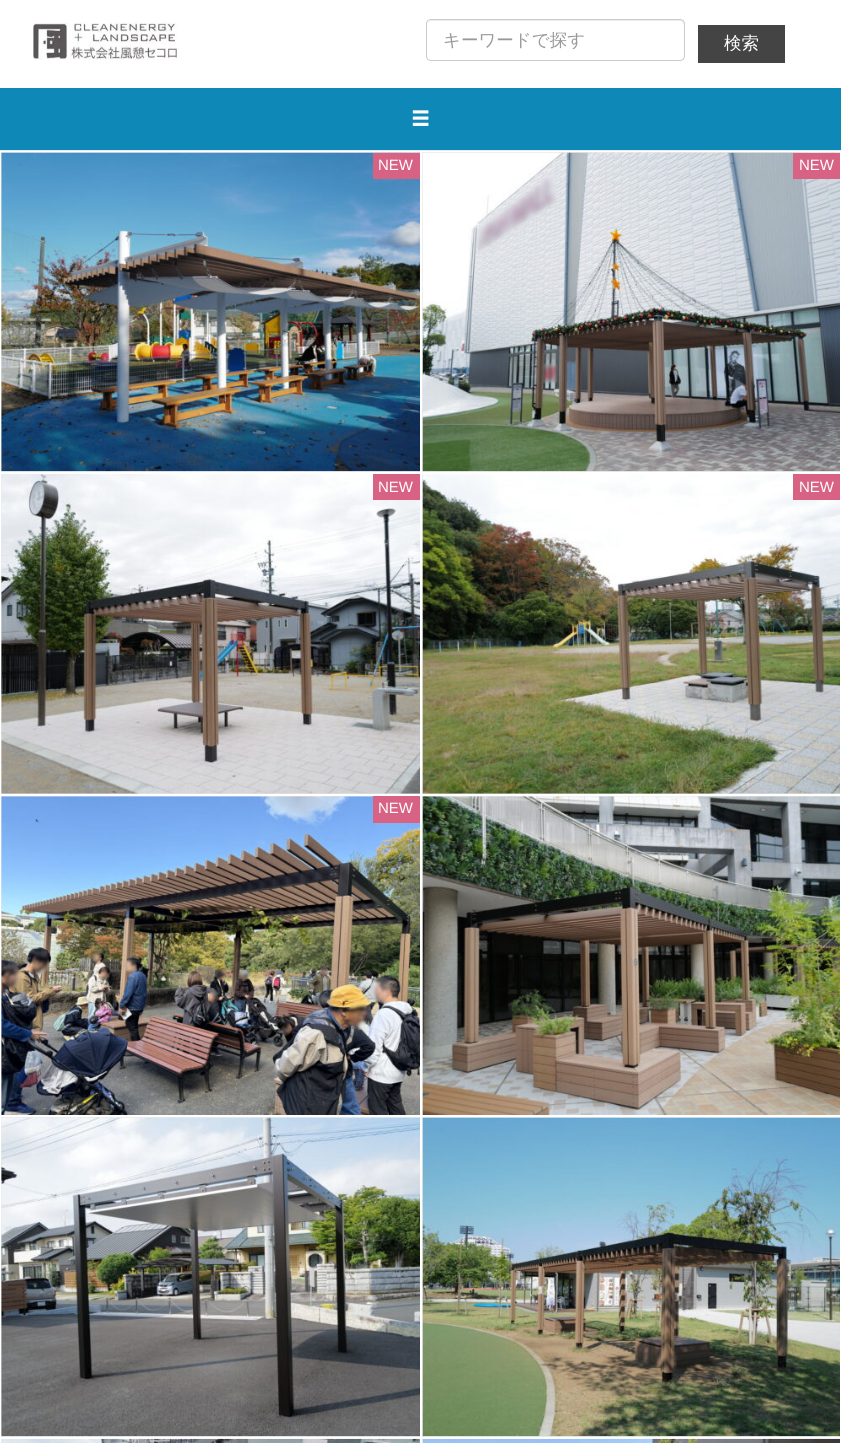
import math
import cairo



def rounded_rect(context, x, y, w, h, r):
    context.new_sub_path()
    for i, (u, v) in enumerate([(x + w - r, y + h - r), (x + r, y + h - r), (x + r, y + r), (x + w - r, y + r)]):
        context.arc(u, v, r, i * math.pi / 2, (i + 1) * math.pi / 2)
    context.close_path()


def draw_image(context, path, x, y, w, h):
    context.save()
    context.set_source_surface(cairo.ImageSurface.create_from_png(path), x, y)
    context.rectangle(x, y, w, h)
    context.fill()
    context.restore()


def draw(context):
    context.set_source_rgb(234 / 255, 234 / 255, 234 / 255)
    context.paint()
    context.set_source_rgb(14 / 255, 136 / 255, 183 / 255)
    context.rectangle(0, 88, 841, 62)
    context.fill()
    context.set_source_rgb(1, 1, 1)
    context.rectangle(0, 0, 841, 88)
    context.fill()
    draw_image(context, "images/1.png", 33, 22, 144, 38)
    context.set_source_rgb(236 / 255, 236 / 255, 236 / 255)
    context.new_path()
    context.move_to(431, 21)
    context.line_to(681, 21)
    context.line_to(683, 23)
    context.line_to(684, 25)
    context.line_to(684, 24)
    context.curve_to(684, 22, 682, 20, 680, 20)
    context.line_to(432, 20)
    context.curve_to(430, 20, 428, 22, 428, 24)
    context.line_to(428, 25)
    context.curve_to(428, 23, 429, 21, 431, 21)
    context.close_path()
    context.fill()
    rounded_rect(context, 426.5, 19.5, 258, 41, 4.5)
    context.set_source_rgb(204 / 255, 204 / 255, 204 / 255)
    context.set_line_width(1)
    context.stroke()
    context.set_source_rgb(68 / 255, 68 / 255, 68 / 255)
    context.rectangle(698, 25, 87, 38)
    context.fill()
    draw_image(context, "images/2.png", 412, 110, 17, 16)
    context.rectangle(0.5, 151.5, 420, 321)
    context.set_source_rgb(1, 1, 1)
    context.stroke()
    draw_image(context, "images/3.png", 1, 152, 419, 320)
    context.set_source_rgb(215 / 255, 98 / 255, 132 / 255)
    context.rectangle(373, 153, 47, 26)
    context.fill()
    context.rectangle(421.5, 151.5, 419, 321)
    context.set_source_rgb(1, 1, 1)
    context.stroke()
    draw_image(context, "images/4.png", 422, 152, 418, 320)
    context.set_source_rgb(215 / 255, 98 / 255, 132 / 255)
    context.rectangle(793, 153, 47, 26)
    context.fill()
    context.rectangle(0.5, 473.5, 420, 321)
    context.set_source_rgb(1, 1, 1)
    context.stroke()
    draw_image(context, "images/5.png", 1, 474, 419, 320)
    context.set_source_rgb(215 / 255, 98 / 255, 132 / 255)
    context.rectangle(373, 474, 47, 26)
    context.fill()
    context.rectangle(421.5, 473.5, 419, 321)
    context.set_source_rgb(1, 1, 1)
    context.stroke()
    draw_image(context, "images/6.png", 422, 474, 418, 320)
    context.set_source_rgb(215 / 255, 98 / 255, 132 / 255)
    context.rectangle(793, 474, 47, 26)
    context.fill()
    context.rectangle(0.5, 795.5, 420, 320)
    context.set_source_rgb(1, 1, 1)
    context.stroke()
    draw_image(context, "images/7.png", 1, 796, 419, 319)
    context.set_source_rgb(215 / 255, 98 / 255, 132 / 255)
    context.rectangle(373, 796, 47, 27)
    context.fill()
    context.rectangle(421.5, 795.5, 419, 320)
    context.set_source_rgb(1, 1, 1)
    context.stroke()
    draw_image(context, "images/8.png", 422, 796, 418, 319)
    context.rectangle(0.5, 1116.5, 420, 321)
    context.stroke()
    draw_image(context, "images/9.png", 1, 1117, 419, 320)
    context.rectangle(421.5, 1116.5, 419, 321)
    context.stroke()
    draw_image(context, "images/10.png", 422, 1117, 418, 320)
    context.rectangle(0.5, 1438.5, 420, 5)
    context.stroke()
    draw_image(context, "images/11.png", 1, 1438, 419, 5)
    context.rectangle(421.5, 1438.5, 419, 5)
    context.stroke()
    draw_image(context, "images/12.png", 422, 1438, 418, 5)
    context.select_font_face("WenQuanYi Zen Hei Medium")
    context.set_font_size(17.5)
    context.set_source_rgb(153 / 255, 153 / 255, 153 / 255)
    context.move_to(443, 46)
    context.show_text("キーワードで探す")
    context.set_source_rgb(1, 1, 1)
    context.move_to(724, 49)
    context.show_text("検索")
    context.select_font_face("Liberation Sans")
    context.set_font_size(15)
    context.move_to(378, 170)
    context.show_text("NEW")
    context.move_to(799, 170)
    context.show_text("NEW")
    context.move_to(378, 492)
    context.show_text("NEW")
    context.move_to(799, 492)
    context.show_text("NEW")
    context.move_to(378, 813)
    context.show_text("NEW")


surface = cairo.ImageSurface(cairo.Format.RGB24, 841, 1443)
context = cairo.Context(surface)
options = cairo.FontOptions()
options.set_hint_metrics(cairo.HintMetrics.OFF)
options.set_hint_style(cairo.HintStyle.NONE)
context.set_font_options(options)
context.set_miter_limit(4)
draw(context)
surface.write_to_png("out.png")
